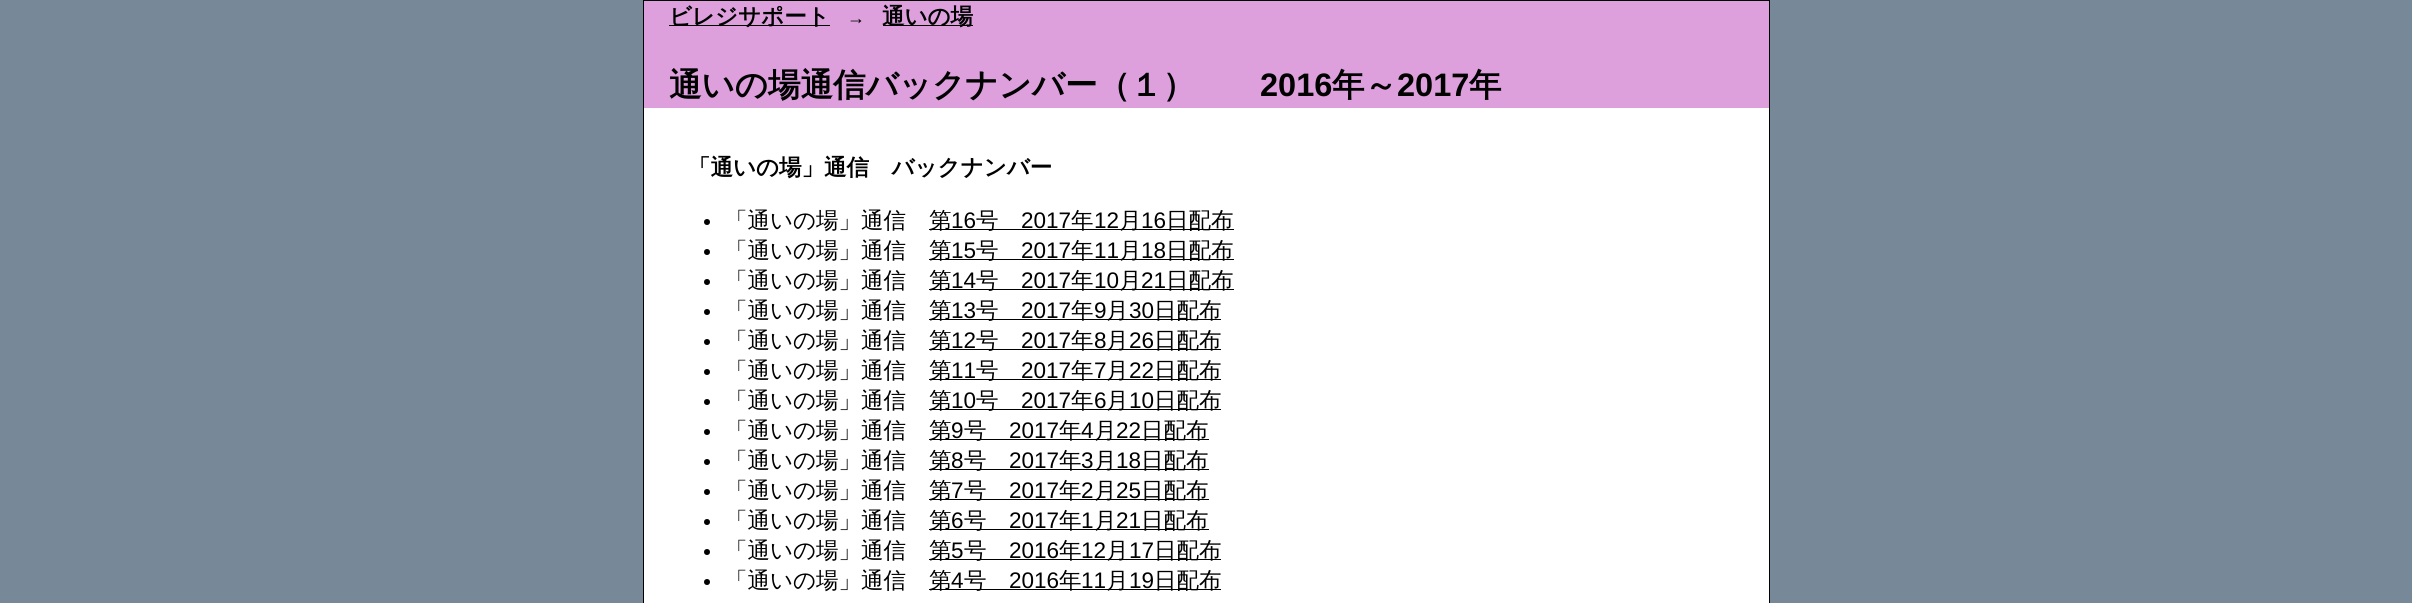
import math
import cairo



def draw(context):
    context.set_source_rgb(119 / 255, 136 / 255, 153 / 255)
    context.paint()
    context.set_source_rgb(1, 1, 1)
    context.rectangle(644, 108, 1125, 495)
    context.fill()
    context.rectangle(643.5, 0.5, 1126, 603)
    context.set_source_rgb(0, 0, 0)
    context.set_line_width(1)
    context.stroke()
    context.set_source_rgb(221 / 255, 160 / 255, 221 / 255)
    context.rectangle(644, 1, 1125, 107)
    context.fill()
    context.set_source_rgb(0, 0, 0)
    context.rectangle(669, 25, 161, 1)
    context.fill()
    context.rectangle(883, 25, 90, 1)
    context.fill()
    context.arc(707, 222, 3, 0, 2 * math.pi)
    context.fill()
    context.rectangle(929, 229, 305, 1)
    context.fill()
    context.arc(707, 252, 3, 0, 2 * math.pi)
    context.fill()
    context.rectangle(929, 259, 305, 1)
    context.fill()
    context.arc(707, 282, 3, 0, 2 * math.pi)
    context.fill()
    context.rectangle(929, 289, 305, 1)
    context.fill()
    context.arc(707, 312, 3, 0, 2 * math.pi)
    context.fill()
    context.rectangle(929, 319, 292, 1)
    context.fill()
    context.arc(707, 342, 3, 0, 2 * math.pi)
    context.fill()
    context.rectangle(929, 349, 292, 1)
    context.fill()
    context.arc(707, 372, 3, 0, 2 * math.pi)
    context.fill()
    context.rectangle(929, 379, 292, 1)
    context.fill()
    context.arc(707, 402, 3, 0, 2 * math.pi)
    context.fill()
    context.rectangle(929, 409, 292, 1)
    context.fill()
    context.arc(707, 432, 3, 0, 2 * math.pi)
    context.fill()
    context.rectangle(929, 439, 280, 1)
    context.fill()
    context.arc(707, 462, 3, 0, 2 * math.pi)
    context.fill()
    context.rectangle(929, 469, 280, 1)
    context.fill()
    context.arc(707, 492, 3, 0, 2 * math.pi)
    context.fill()
    context.rectangle(929, 499, 280, 1)
    context.fill()
    context.arc(707, 522, 3, 0, 2 * math.pi)
    context.fill()
    context.rectangle(929, 529, 280, 1)
    context.fill()
    context.arc(707, 552, 3, 0, 2 * math.pi)
    context.fill()
    context.rectangle(929, 559, 292, 1)
    context.fill()
    context.arc(707, 582, 3, 0, 2 * math.pi)
    context.fill()
    context.rectangle(929, 589, 292, 1)
    context.fill()
    context.select_font_face("WenQuanYi Zen Hei", cairo.FontSlant.NORMAL, cairo.FontWeight.BOLD)
    context.set_font_size(22.5)
    context.move_to(669, 24)
    context.show_text("ビレジサポート")
    context.select_font_face("Liberation Sans", cairo.FontSlant.NORMAL, cairo.FontWeight.BOLD)
    context.set_font_size(18)
    context.move_to(847, 24)
    context.show_text("→")
    context.select_font_face("WenQuanYi Zen Hei", cairo.FontSlant.NORMAL, cairo.FontWeight.BOLD)
    context.set_font_size(22.5)
    context.move_to(882, 24)
    context.show_text("通いの場")
    context.set_font_size(32.5)
    context.move_to(669, 96)
    context.show_text("通いの場通信バックナンバー（１）")
    context.select_font_face("Liberation Sans", cairo.FontSlant.NORMAL, cairo.FontWeight.BOLD)
    context.move_to(1260, 96)
    context.show_text("2016")
    context.select_font_face("WenQuanYi Zen Hei", cairo.FontSlant.NORMAL, cairo.FontWeight.BOLD)
    context.move_to(1332, 96)
    context.show_text("年～")
    context.select_font_face("Liberation Sans", cairo.FontSlant.NORMAL, cairo.FontWeight.BOLD)
    context.move_to(1397, 96)
    context.show_text("2017")
    context.select_font_face("WenQuanYi Zen Hei", cairo.FontSlant.NORMAL, cairo.FontWeight.BOLD)
    context.move_to(1469, 96)
    context.show_text("年")
    context.set_font_size(22.5)
    context.move_to(688, 175)
    context.show_text("「通いの場」通信　バックナンバー")
    context.select_font_face("WenQuanYi Zen Hei Medium")
    context.move_to(725, 228)
    context.show_text("「通いの場」通信")
    context.move_to(929, 228)
    context.show_text("第")
    context.select_font_face("Liberation Sans")
    context.move_to(951, 228)
    context.show_text("16")
    context.select_font_face("WenQuanYi Zen Hei Medium")
    context.move_to(976, 228)
    context.show_text("号")
    context.select_font_face("Liberation Sans")
    context.move_to(1021, 228)
    context.show_text("2017")
    context.select_font_face("WenQuanYi Zen Hei Medium")
    context.move_to(1071, 228)
    context.show_text("年")
    context.select_font_face("Liberation Sans")
    context.move_to(1094, 228)
    context.show_text("12")
    context.select_font_face("WenQuanYi Zen Hei Medium")
    context.move_to(1119, 228)
    context.show_text("月")
    context.select_font_face("Liberation Sans")
    context.move_to(1141, 228)
    context.show_text("16")
    context.select_font_face("WenQuanYi Zen Hei Medium")
    context.move_to(1166, 228)
    context.show_text("日配布")
    context.move_to(725, 258)
    context.show_text("「通いの場」通信")
    context.move_to(929, 258)
    context.show_text("第")
    context.select_font_face("Liberation Sans")
    context.move_to(951, 258)
    context.show_text("15")
    context.select_font_face("WenQuanYi Zen Hei Medium")
    context.move_to(976, 258)
    context.show_text("号")
    context.select_font_face("Liberation Sans")
    context.move_to(1021, 258)
    context.show_text("2017")
    context.select_font_face("WenQuanYi Zen Hei Medium")
    context.move_to(1071, 258)
    context.show_text("年")
    context.select_font_face("Liberation Sans")
    context.move_to(1094, 258)
    context.show_text("11")
    context.select_font_face("WenQuanYi Zen Hei Medium")
    context.move_to(1119, 258)
    context.show_text("月")
    context.select_font_face("Liberation Sans")
    context.move_to(1141, 258)
    context.show_text("18")
    context.select_font_face("WenQuanYi Zen Hei Medium")
    context.move_to(1166, 258)
    context.show_text("日配布")
    context.move_to(725, 288)
    context.show_text("「通いの場」通信")
    context.move_to(929, 288)
    context.show_text("第")
    context.select_font_face("Liberation Sans")
    context.move_to(951, 288)
    context.show_text("14")
    context.select_font_face("WenQuanYi Zen Hei Medium")
    context.move_to(976, 288)
    context.show_text("号")
    context.select_font_face("Liberation Sans")
    context.move_to(1021, 288)
    context.show_text("2017")
    context.select_font_face("WenQuanYi Zen Hei Medium")
    context.move_to(1071, 288)
    context.show_text("年")
    context.select_font_face("Liberation Sans")
    context.move_to(1094, 288)
    context.show_text("10")
    context.select_font_face("WenQuanYi Zen Hei Medium")
    context.move_to(1119, 288)
    context.show_text("月")
    context.select_font_face("Liberation Sans")
    context.move_to(1141, 288)
    context.show_text("21")
    context.select_font_face("WenQuanYi Zen Hei Medium")
    context.move_to(1166, 288)
    context.show_text("日配布")
    context.move_to(725, 318)
    context.show_text("「通いの場」通信")
    context.move_to(929, 318)
    context.show_text("第")
    context.select_font_face("Liberation Sans")
    context.move_to(951, 318)
    context.show_text("13")
    context.select_font_face("WenQuanYi Zen Hei Medium")
    context.move_to(976, 318)
    context.show_text("号")
    context.select_font_face("Liberation Sans")
    context.move_to(1021, 318)
    context.show_text("2017")
    context.select_font_face("WenQuanYi Zen Hei Medium")
    context.move_to(1071, 318)
    context.show_text("年")
    context.select_font_face("Liberation Sans")
    context.move_to(1094, 318)
    context.show_text("9")
    context.select_font_face("WenQuanYi Zen Hei Medium")
    context.move_to(1106, 318)
    context.show_text("月")
    context.select_font_face("Liberation Sans")
    context.move_to(1129, 318)
    context.show_text("30")
    context.select_font_face("WenQuanYi Zen Hei Medium")
    context.move_to(1154, 318)
    context.show_text("日配布")
    context.move_to(725, 348)
    context.show_text("「通いの場」通信")
    context.move_to(929, 348)
    context.show_text("第")
    context.select_font_face("Liberation Sans")
    context.move_to(951, 348)
    context.show_text("12")
    context.select_font_face("WenQuanYi Zen Hei Medium")
    context.move_to(976, 348)
    context.show_text("号")
    context.select_font_face("Liberation Sans")
    context.move_to(1021, 348)
    context.show_text("2017")
    context.select_font_face("WenQuanYi Zen Hei Medium")
    context.move_to(1071, 348)
    context.show_text("年")
    context.select_font_face("Liberation Sans")
    context.move_to(1094, 348)
    context.show_text("8")
    context.select_font_face("WenQuanYi Zen Hei Medium")
    context.move_to(1106, 348)
    context.show_text("月")
    context.select_font_face("Liberation Sans")
    context.move_to(1129, 348)
    context.show_text("26")
    context.select_font_face("WenQuanYi Zen Hei Medium")
    context.move_to(1154, 348)
    context.show_text("日配布")
    context.move_to(725, 378)
    context.show_text("「通いの場」通信")
    context.move_to(929, 378)
    context.show_text("第")
    context.select_font_face("Liberation Sans")
    context.move_to(951, 378)
    context.show_text("11")
    context.select_font_face("WenQuanYi Zen Hei Medium")
    context.move_to(976, 378)
    context.show_text("号")
    context.select_font_face("Liberation Sans")
    context.move_to(1021, 378)
    context.show_text("2017")
    context.select_font_face("WenQuanYi Zen Hei Medium")
    context.move_to(1071, 378)
    context.show_text("年")
    context.select_font_face("Liberation Sans")
    context.move_to(1094, 378)
    context.show_text("7")
    context.select_font_face("WenQuanYi Zen Hei Medium")
    context.move_to(1106, 378)
    context.show_text("月")
    context.select_font_face("Liberation Sans")
    context.move_to(1129, 378)
    context.show_text("22")
    context.select_font_face("WenQuanYi Zen Hei Medium")
    context.move_to(1154, 378)
    context.show_text("日配布")
    context.move_to(725, 408)
    context.show_text("「通いの場」通信")
    context.move_to(929, 408)
    context.show_text("第")
    context.select_font_face("Liberation Sans")
    context.move_to(951, 408)
    context.show_text("10")
    context.select_font_face("WenQuanYi Zen Hei Medium")
    context.move_to(976, 408)
    context.show_text("号")
    context.select_font_face("Liberation Sans")
    context.move_to(1021, 408)
    context.show_text("2017")
    context.select_font_face("WenQuanYi Zen Hei Medium")
    context.move_to(1071, 408)
    context.show_text("年")
    context.select_font_face("Liberation Sans")
    context.move_to(1094, 408)
    context.show_text("6")
    context.select_font_face("WenQuanYi Zen Hei Medium")
    context.move_to(1106, 408)
    context.show_text("月")
    context.select_font_face("Liberation Sans")
    context.move_to(1129, 408)
    context.show_text("10")
    context.select_font_face("WenQuanYi Zen Hei Medium")
    context.move_to(1154, 408)
    context.show_text("日配布")
    context.move_to(725, 438)
    context.show_text("「通いの場」通信")
    context.move_to(929, 438)
    context.show_text("第")
    context.select_font_face("Liberation Sans")
    context.move_to(951, 438)
    context.show_text("9")
    context.select_font_face("WenQuanYi Zen Hei Medium")
    context.move_to(964, 438)
    context.show_text("号")
    context.select_font_face("Liberation Sans")
    context.move_to(1009, 438)
    context.show_text("2017")
    context.select_font_face("WenQuanYi Zen Hei Medium")
    context.move_to(1059, 438)
    context.show_text("年")
    context.select_font_face("Liberation Sans")
    context.move_to(1081, 438)
    context.show_text("4")
    context.select_font_face("WenQuanYi Zen Hei Medium")
    context.move_to(1094, 438)
    context.show_text("月")
    context.select_font_face("Liberation Sans")
    context.move_to(1116, 438)
    context.show_text("22")
    context.select_font_face("WenQuanYi Zen Hei Medium")
    context.move_to(1141, 438)
    context.show_text("日配布")
    context.move_to(725, 468)
    context.show_text("「通いの場」通信")
    context.move_to(929, 468)
    context.show_text("第")
    context.select_font_face("Liberation Sans")
    context.move_to(951, 468)
    context.show_text("8")
    context.select_font_face("WenQuanYi Zen Hei Medium")
    context.move_to(964, 468)
    context.show_text("号")
    context.select_font_face("Liberation Sans")
    context.move_to(1009, 468)
    context.show_text("2017")
    context.select_font_face("WenQuanYi Zen Hei Medium")
    context.move_to(1059, 468)
    context.show_text("年")
    context.select_font_face("Liberation Sans")
    context.move_to(1081, 468)
    context.show_text("3")
    context.select_font_face("WenQuanYi Zen Hei Medium")
    context.move_to(1094, 468)
    context.show_text("月")
    context.select_font_face("Liberation Sans")
    context.move_to(1116, 468)
    context.show_text("18")
    context.select_font_face("WenQuanYi Zen Hei Medium")
    context.move_to(1141, 468)
    context.show_text("日配布")
    context.move_to(725, 498)
    context.show_text("「通いの場」通信")
    context.move_to(929, 498)
    context.show_text("第")
    context.select_font_face("Liberation Sans")
    context.move_to(951, 498)
    context.show_text("7")
    context.select_font_face("WenQuanYi Zen Hei Medium")
    context.move_to(964, 498)
    context.show_text("号")
    context.select_font_face("Liberation Sans")
    context.move_to(1009, 498)
    context.show_text("2017")
    context.select_font_face("WenQuanYi Zen Hei Medium")
    context.move_to(1059, 498)
    context.show_text("年")
    context.select_font_face("Liberation Sans")
    context.move_to(1081, 498)
    context.show_text("2")
    context.select_font_face("WenQuanYi Zen Hei Medium")
    context.move_to(1094, 498)
    context.show_text("月")
    context.select_font_face("Liberation Sans")
    context.move_to(1116, 498)
    context.show_text("25")
    context.select_font_face("WenQuanYi Zen Hei Medium")
    context.move_to(1141, 498)
    context.show_text("日配布")
    context.move_to(725, 528)
    context.show_text("「通いの場」通信")
    context.move_to(929, 528)
    context.show_text("第")
    context.select_font_face("Liberation Sans")
    context.move_to(951, 528)
    context.show_text("6")
    context.select_font_face("WenQuanYi Zen Hei Medium")
    context.move_to(964, 528)
    context.show_text("号")
    context.select_font_face("Liberation Sans")
    context.move_to(1009, 528)
    context.show_text("2017")
    context.select_font_face("WenQuanYi Zen Hei Medium")
    context.move_to(1059, 528)
    context.show_text("年")
    context.select_font_face("Liberation Sans")
    context.move_to(1081, 528)
    context.show_text("1")
    context.select_font_face("WenQuanYi Zen Hei Medium")
    context.move_to(1094, 528)
    context.show_text("月")
    context.select_font_face("Liberation Sans")
    context.move_to(1116, 528)
    context.show_text("21")
    context.select_font_face("WenQuanYi Zen Hei Medium")
    context.move_to(1141, 528)
    context.show_text("日配布")
    context.move_to(725, 558)
    context.show_text("「通いの場」通信")
    context.move_to(929, 558)
    context.show_text("第")
    context.select_font_face("Liberation Sans")
    context.move_to(951, 558)
    context.show_text("5")
    context.select_font_face("WenQuanYi Zen Hei Medium")
    context.move_to(964, 558)
    context.show_text("号")
    context.select_font_face("Liberation Sans")
    context.move_to(1009, 558)
    context.show_text("2016")
    context.select_font_face("WenQuanYi Zen Hei Medium")
    context.move_to(1059, 558)
    context.show_text("年")
    context.select_font_face("Liberation Sans")
    context.move_to(1081, 558)
    context.show_text("12")
    context.select_font_face("WenQuanYi Zen Hei Medium")
    context.move_to(1106, 558)
    context.show_text("月")
    context.select_font_face("Liberation Sans")
    context.move_to(1129, 558)
    context.show_text("17")
    context.select_font_face("WenQuanYi Zen Hei Medium")
    context.move_to(1154, 558)
    context.show_text("日配布")
    context.move_to(725, 588)
    context.show_text("「通いの場」通信")
    context.move_to(929, 588)
    context.show_text("第")
    context.select_font_face("Liberation Sans")
    context.move_to(951, 588)
    context.show_text("4")
    context.select_font_face("WenQuanYi Zen Hei Medium")
    context.move_to(964, 588)
    context.show_text("号")
    context.select_font_face("Liberation Sans")
    context.move_to(1009, 588)
    context.show_text("2016")
    context.select_font_face("WenQuanYi Zen Hei Medium")
    context.move_to(1059, 588)
    context.show_text("年")
    context.select_font_face("Liberation Sans")
    context.move_to(1081, 588)
    context.show_text("11")
    context.select_font_face("WenQuanYi Zen Hei Medium")
    context.move_to(1106, 588)
    context.show_text("月")
    context.select_font_face("Liberation Sans")
    context.move_to(1129, 588)
    context.show_text("19")
    context.select_font_face("WenQuanYi Zen Hei Medium")
    context.move_to(1154, 588)
    context.show_text("日配布")


surface = cairo.ImageSurface(cairo.Format.RGB24, 2412, 603)
context = cairo.Context(surface)
options = cairo.FontOptions()
options.set_hint_metrics(cairo.HintMetrics.OFF)
options.set_hint_style(cairo.HintStyle.NONE)
context.set_font_options(options)
context.set_miter_limit(4)
draw(context)
surface.write_to_png("out.png")
